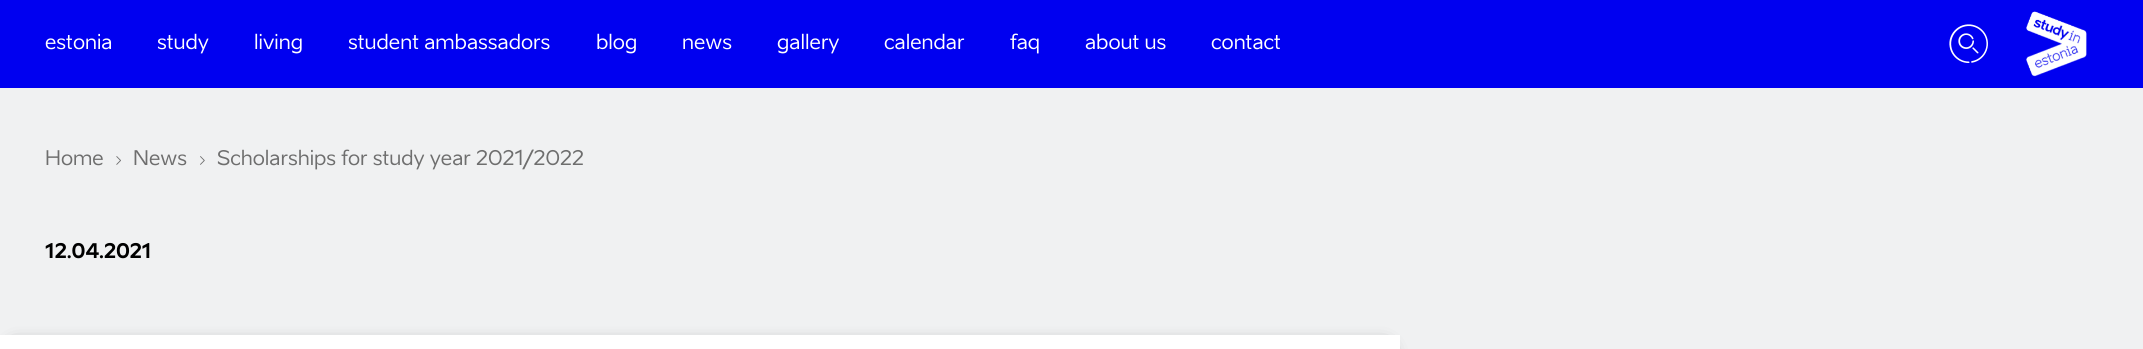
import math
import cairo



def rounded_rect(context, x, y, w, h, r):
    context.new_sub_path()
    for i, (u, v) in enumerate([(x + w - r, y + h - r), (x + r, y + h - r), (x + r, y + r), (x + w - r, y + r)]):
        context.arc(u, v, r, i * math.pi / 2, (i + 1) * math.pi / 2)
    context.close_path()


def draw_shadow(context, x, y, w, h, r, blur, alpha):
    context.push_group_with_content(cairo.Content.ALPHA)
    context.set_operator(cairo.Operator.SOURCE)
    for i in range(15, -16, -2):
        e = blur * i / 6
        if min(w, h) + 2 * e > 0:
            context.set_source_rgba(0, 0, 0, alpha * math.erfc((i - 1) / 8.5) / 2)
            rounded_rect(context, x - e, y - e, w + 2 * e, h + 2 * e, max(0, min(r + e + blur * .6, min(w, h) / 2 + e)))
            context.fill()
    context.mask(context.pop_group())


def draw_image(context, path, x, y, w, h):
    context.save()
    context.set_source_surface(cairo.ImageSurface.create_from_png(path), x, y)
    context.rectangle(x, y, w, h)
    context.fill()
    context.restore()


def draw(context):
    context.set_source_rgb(240 / 255, 241 / 255, 242 / 255)
    context.paint()
    context.set_source_rgb(0, 0, 240 / 255)
    context.rectangle(0, 0, 2143, 88)
    context.fill()
    draw_image(context, "images/1.png", 1949, 24, 39, 39)
    draw_image(context, "images/2.png", 2026, 11, 61, 66)
    draw_image(context, "images/3.png", 116, 156, 5, 9)
    draw_image(context, "images/4.png", 200, 156, 5, 9)
    context.set_source_rgb(0, 0, 0)
    draw_shadow(context, 15, 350, 1370, 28, 0, 9.5, 1)
    context.set_source_rgb(1, 1, 1)
    context.rectangle(0, 335, 1400, 14)
    context.fill()
    context.select_font_face("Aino")
    context.set_font_size(20)
    context.move_to(45, 49)
    context.show_text("estonia")
    context.move_to(157, 49)
    context.show_text("study")
    context.move_to(254, 49)
    context.show_text("living")
    context.move_to(348, 49)
    context.show_text("student ambassadors")
    context.move_to(596, 49)
    context.show_text("blog")
    context.move_to(682, 49)
    context.show_text("news")
    context.move_to(777, 49)
    context.show_text("gallery")
    context.move_to(884, 49)
    context.show_text("calendar")
    context.move_to(1010, 49)
    context.show_text("faq")
    context.move_to(1085, 49)
    context.show_text("about us")
    context.move_to(1211, 49)
    context.show_text("contact")
    context.set_source_rgb(110 / 255, 110 / 255, 110 / 255)
    context.move_to(45, 165)
    context.show_text("Home")
    context.move_to(133, 165)
    context.show_text("News")
    context.move_to(217, 165)
    context.show_text("Scholarships for study year 2021/2022")
    context.select_font_face("Aino", cairo.FontSlant.NORMAL, cairo.FontWeight.BOLD)
    context.set_source_rgb(0, 0, 0)
    context.move_to(45, 258)
    context.show_text("12.04.2021")


surface = cairo.ImageSurface(cairo.Format.RGB24, 2143, 349)
context = cairo.Context(surface)
options = cairo.FontOptions()
options.set_hint_metrics(cairo.HintMetrics.OFF)
options.set_hint_style(cairo.HintStyle.NONE)
context.set_font_options(options)
context.set_miter_limit(4)
draw(context)
surface.write_to_png("out.png")
